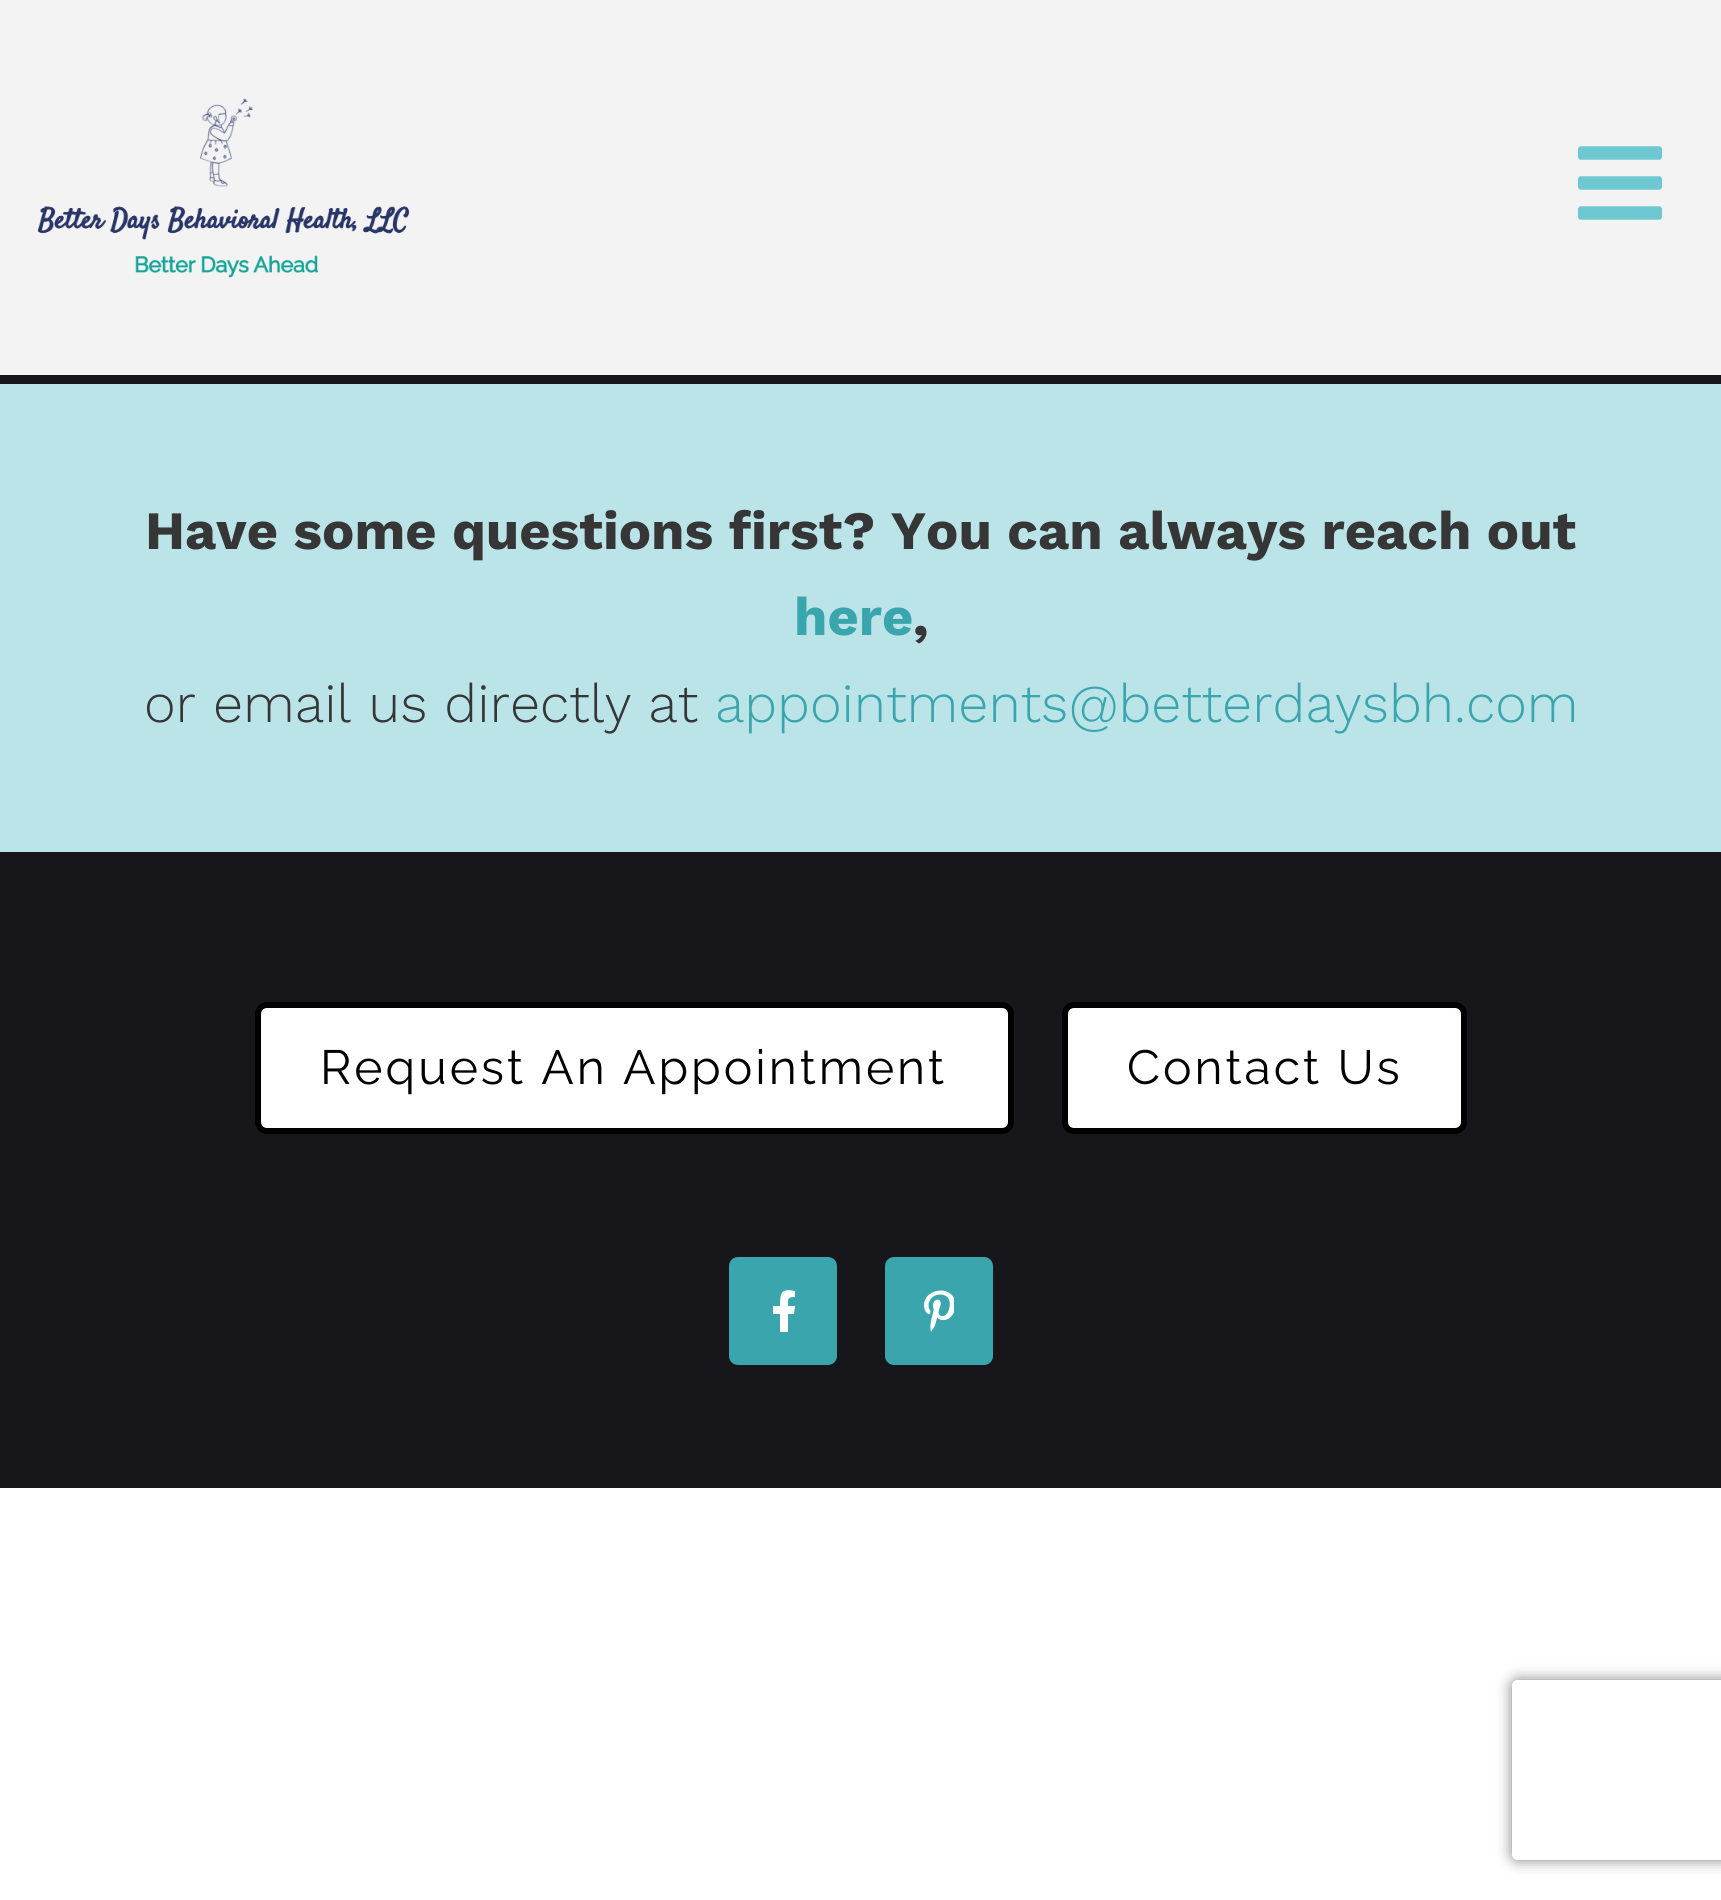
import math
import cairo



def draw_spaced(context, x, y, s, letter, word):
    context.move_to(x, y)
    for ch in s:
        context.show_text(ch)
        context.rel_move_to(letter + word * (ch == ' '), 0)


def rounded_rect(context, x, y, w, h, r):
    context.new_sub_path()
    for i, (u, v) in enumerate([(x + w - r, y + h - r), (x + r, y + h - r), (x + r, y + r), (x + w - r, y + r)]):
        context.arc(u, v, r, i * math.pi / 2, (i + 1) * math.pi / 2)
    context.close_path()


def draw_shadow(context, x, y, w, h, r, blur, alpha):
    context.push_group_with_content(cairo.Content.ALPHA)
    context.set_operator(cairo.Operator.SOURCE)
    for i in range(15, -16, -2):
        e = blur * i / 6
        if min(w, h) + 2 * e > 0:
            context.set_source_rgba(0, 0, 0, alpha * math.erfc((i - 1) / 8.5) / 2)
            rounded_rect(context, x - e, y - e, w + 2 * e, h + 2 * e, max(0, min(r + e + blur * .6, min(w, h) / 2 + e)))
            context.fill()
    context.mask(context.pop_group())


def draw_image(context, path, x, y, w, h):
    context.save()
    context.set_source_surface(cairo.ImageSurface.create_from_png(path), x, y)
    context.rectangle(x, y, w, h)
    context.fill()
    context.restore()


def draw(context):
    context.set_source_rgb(1, 1, 1)
    context.paint()
    context.set_source_rgb(243 / 255, 243 / 255, 243 / 255)
    context.rectangle(0, 0, 1721, 375)
    context.fill()
    draw_image(context, "images/1.png", 37, 98, 373, 180)
    draw_image(context, "images/2.png", 1578, 146, 84, 74)
    context.set_source_rgb(187 / 255, 228 / 255, 232 / 255)
    context.rectangle(0, 384, 1721, 468)
    context.fill()
    context.set_source_rgb(23 / 255, 22 / 255, 26 / 255)
    context.rectangle(0, 375, 1721, 9)
    context.fill()
    context.rectangle(0, 852, 1721, 636)
    context.fill()
    context.set_source_rgb(1, 1, 1)
    rounded_rect(context, 258, 1005, 753, 126, 9)
    context.fill_preserve()
    context.set_source_rgb(0, 0, 0)
    context.set_line_width(6)
    context.stroke()
    context.set_source_rgb(1, 1, 1)
    rounded_rect(context, 1065, 1005, 399, 126, 9)
    context.fill_preserve()
    context.set_source_rgb(0, 0, 0)
    context.stroke()
    context.set_source_rgb(58 / 255, 165 / 255, 173 / 255)
    rounded_rect(context, 733.5, 1261.5, 99, 99, 4.5)
    context.fill_preserve()
    context.set_line_width(9)
    context.stroke()
    context.set_source_rgb(1, 1, 1)
    context.new_path()
    context.move_to(794, 1314)
    context.line_to(795, 1306)
    context.line_to(788, 1306)
    context.curve_to(788, 1299, 787, 1297, 795, 1297)
    context.line_to(795, 1291)
    context.curve_to(781, 1288, 780, 1293, 780, 1306)
    context.line_to(773, 1306)
    context.line_to(773, 1314)
    context.line_to(780, 1314)
    context.line_to(780, 1332)
    context.line_to(788, 1332)
    context.line_to(788, 1314)
    context.close_path()
    context.fill()
    context.set_source_rgb(58 / 255, 165 / 255, 173 / 255)
    rounded_rect(context, 889.5, 1261.5, 99, 99, 4.5)
    context.fill_preserve()
    context.stroke()
    draw_image(context, "images/3.png", 924, 1290, 30, 42)
    context.save()
    context.set_fill_rule(cairo.FillRule.EVEN_ODD)
    context.new_path()
    context.move_to(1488, 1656)
    context.line_to(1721, 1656)
    context.line_to(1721, 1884)
    context.line_to(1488, 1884)
    context.close_path()
    context.move_to(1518, 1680)
    context.line_to(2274, 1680)
    context.curve_to(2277.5, 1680, 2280, 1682.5, 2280, 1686)
    context.line_to(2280, 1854)
    context.curve_to(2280, 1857.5, 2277.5, 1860, 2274, 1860)
    context.line_to(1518, 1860)
    context.curve_to(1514.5, 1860, 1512, 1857.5, 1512, 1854)
    context.line_to(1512, 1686)
    context.curve_to(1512, 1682.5, 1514.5, 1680, 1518, 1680)
    context.close_path()
    context.clip()
    context.set_source_rgb(128 / 255, 128 / 255, 128 / 255)
    draw_shadow(context, 1512, 1680, 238, 180, 6, 7.5, 1)
    context.restore()
    context.select_font_face("Work Sans", cairo.FontSlant.NORMAL, cairo.FontWeight.BOLD)
    context.set_font_size(54)
    context.set_source_rgb(54 / 255, 54 / 255, 54 / 255)
    context.move_to(145, 549)
    context.show_text("Have some questions first? You can always reach out")
    context.set_source_rgb(58 / 255, 165 / 255, 173 / 255)
    context.move_to(794, 635)
    context.show_text("here")
    context.set_source_rgb(54 / 255, 54 / 255, 54 / 255)
    context.move_to(913, 635)
    context.show_text(",")
    context.select_font_face("Work Sans Light")
    context.move_to(144, 722)
    context.show_text("or email us directly at")
    context.set_source_rgb(58 / 255, 165 / 255, 173 / 255)
    context.move_to(715, 722)
    context.show_text("appointments@betterdaysbh.com")
    context.select_font_face("Raleway")
    context.set_font_size(48)
    context.set_source_rgb(0, 0, 0)
    draw_spaced(context, 320, 1084, "Request An Appointment", 3, 0)
    draw_spaced(context, 1127, 1084, "Contact Us", 3, 0)


surface = cairo.ImageSurface(cairo.Format.RGB24, 1721, 1900)
context = cairo.Context(surface)
options = cairo.FontOptions()
options.set_hint_metrics(cairo.HintMetrics.OFF)
options.set_hint_style(cairo.HintStyle.NONE)
context.set_font_options(options)
context.set_miter_limit(4)
draw(context)
surface.write_to_png("out.png")
